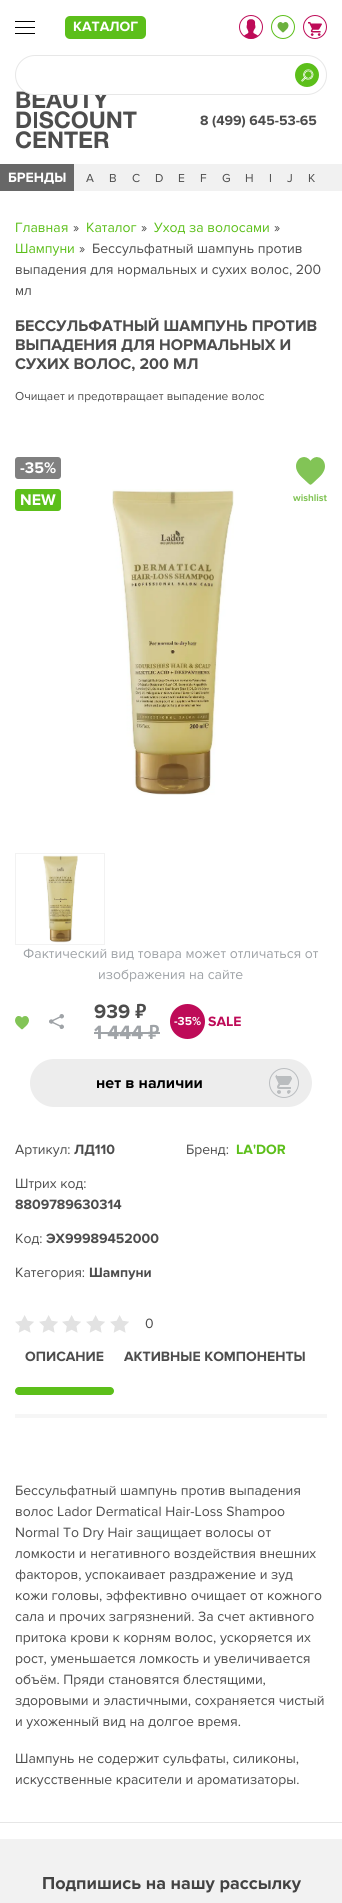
import math
import cairo



def rounded_rect(context, x, y, w, h, r):
    context.new_sub_path()
    for i, (u, v) in enumerate([(x + w - r, y + h - r), (x + r, y + h - r), (x + r, y + r), (x + w - r, y + r)]):
        context.arc(u, v, r, i * math.pi / 2, (i + 1) * math.pi / 2)
    context.close_path()


def draw_image(context, path, x, y, w, h):
    context.save()
    context.set_source_surface(cairo.ImageSurface.create_from_png(path), x, y)
    context.rectangle(x, y, w, h)
    context.fill()
    context.restore()


def draw(context):
    context.set_source_rgb(1, 1, 1)
    context.paint()
    context.set_source_rgb(0, 0, 0)
    context.rectangle(15, 27, 20, 1)
    context.fill()
    context.rectangle(15, 21, 20, 1)
    context.fill()
    context.rectangle(15, 33, 20, 1)
    context.fill()
    context.set_source_rgb(92 / 255, 191 / 255, 26 / 255)
    rounded_rect(context, 65, 16, 81, 23, 5)
    context.fill()
    context.arc(251, 27, 11.5, 0, 2 * math.pi)
    context.set_source_rgb(190 / 255, 11 / 255, 88 / 255)
    context.set_line_width(1)
    context.stroke()
    draw_image(context, "images/1.png", 244, 19, 14, 20)
    context.arc(283, 27, 11.5, 0, 2 * math.pi)
    context.set_source_rgb(92 / 255, 191 / 255, 26 / 255)
    context.stroke()
    draw_image(context, "images/2.png", 277, 22, 12, 11)
    context.arc(315, 27, 11.5, 0, 2 * math.pi)
    context.set_source_rgb(190 / 255, 11 / 255, 88 / 255)
    context.stroke()
    draw_image(context, "images/3.png", 308, 22, 14, 14)
    draw_image(context, "images/5.png", 15, 91, 122, 58)
    context.set_source_rgb(1, 1, 1)
    rounded_rect(context, 15.5, 55.5, 311, 39, 19.5)
    context.fill_preserve()
    context.set_source_rgb(231 / 255, 231 / 255, 231 / 255)
    context.stroke()
    context.set_source_rgb(92 / 255, 191 / 255, 26 / 255)
    context.arc(307, 75, 12, 0, 2 * math.pi)
    context.fill()
    draw_image(context, "images/4.png", 301, 69, 13, 13)
    context.set_source_rgb(103 / 255, 103 / 255, 103 / 255)
    context.rectangle(0, 164, 74, 27)
    context.fill()
    context.set_source_rgb(241 / 255, 241 / 255, 241 / 255)
    context.rectangle(74, 164, 268, 27)
    context.fill()
    context.set_source_rgb(128 / 255, 128 / 255, 128 / 255)
    rounded_rect(context, 15, 457, 46, 22, 3)
    context.fill()
    context.set_source_rgb(92 / 255, 191 / 255, 26 / 255)
    rounded_rect(context, 15, 489, 46, 22, 3)
    context.fill()
    draw_image(context, "images/6.png", 112, 489, 122, 306)
    draw_image(context, "images/7.png", 296, 457, 29, 28)
    context.rectangle(15.5, 853.5, 89, 91)
    context.set_source_rgb(242 / 255, 242 / 255, 242 / 255)
    context.stroke()
    draw_image(context, "images/8.png", 43, 855, 35, 88)
    draw_image(context, "images/9.png", 15, 1016, 14, 14)
    draw_image(context, "images/10.png", 49, 1014, 15, 15)
    context.set_source_rgb(159 / 255, 163 / 255, 167 / 255)
    context.rectangle(94, 1032, 66, 2)
    context.fill()
    context.set_source_rgb(190 / 255, 11 / 255, 88 / 255)
    context.arc(187.5, 1021.5, 17.5, 0, 2 * math.pi)
    context.fill()
    context.set_source_rgb(237 / 255, 237 / 255, 237 / 255)
    rounded_rect(context, 30, 1059, 282, 48, 24)
    context.fill()
    context.arc(284, 1083, 14.5, 0, 2 * math.pi)
    context.set_source_rgb(186 / 255, 189 / 255, 192 / 255)
    context.stroke()
    draw_image(context, "images/11.png", 275, 1074, 17, 20)
    draw_image(context, "images/12.png", 15, 1315, 19, 18)
    draw_image(context, "images/12.png", 39, 1315, 19, 18)
    draw_image(context, "images/12.png", 62, 1315, 19, 18)
    draw_image(context, "images/12.png", 86, 1315, 19, 18)
    draw_image(context, "images/12.png", 110, 1315, 19, 18)
    context.set_source_rgb(92 / 255, 191 / 255, 26 / 255)
    rounded_rect(context, 15, 1387, 99, 8, 4)
    context.fill()
    context.set_source_rgb(246 / 255, 246 / 255, 246 / 255)
    context.rectangle(15, 1414, 312, 4)
    context.fill()
    context.set_source_rgb(230 / 255, 230 / 255, 230 / 255)
    context.rectangle(0, 1822, 342, 1)
    context.fill()
    context.set_source_rgb(242 / 255, 242 / 255, 242 / 255)
    context.rectangle(0, 1839, 342, 64)
    context.fill()
    context.select_font_face("Proxima Nova", cairo.FontSlant.NORMAL, cairo.FontWeight.BOLD)
    context.set_font_size(14)
    context.set_source_rgb(1, 1, 1)
    context.move_to(73, 31)
    context.show_text("КАТАЛОГ")
    context.set_source_rgb(77 / 255, 77 / 255, 77 / 255)
    context.move_to(200, 125)
    context.show_text("8 (499) 645-53-65")
    context.set_source_rgb(1, 1, 1)
    context.move_to(8, 182)
    context.show_text("БРЕНДЫ")
    context.select_font_face("Proxima Nova")
    context.set_font_size(12)
    context.set_source_rgb(77 / 255, 77 / 255, 77 / 255)
    context.move_to(86, 182)
    context.show_text("A")
    context.move_to(109, 182)
    context.show_text("B")
    context.move_to(132, 182)
    context.show_text("C")
    context.move_to(155, 182)
    context.show_text("D")
    context.move_to(178, 182)
    context.show_text("E")
    context.move_to(200, 182)
    context.show_text("F")
    context.move_to(222, 182)
    context.show_text("G")
    context.move_to(245, 182)
    context.show_text("H")
    context.move_to(269, 182)
    context.show_text("I")
    context.move_to(287, 182)
    context.show_text("J")
    context.move_to(308, 182)
    context.show_text("K")
    context.set_font_size(14)
    context.set_source_rgb(92 / 255, 191 / 255, 26 / 255)
    context.move_to(15, 232)
    context.show_text("Главная")
    context.set_source_rgb(77 / 255, 77 / 255, 77 / 255)
    context.move_to(73, 232)
    context.show_text("»")
    context.set_source_rgb(92 / 255, 191 / 255, 26 / 255)
    context.move_to(86, 232)
    context.show_text("Каталог")
    context.set_source_rgb(77 / 255, 77 / 255, 77 / 255)
    context.move_to(141, 232)
    context.show_text("»")
    context.set_source_rgb(92 / 255, 191 / 255, 26 / 255)
    context.move_to(154, 232)
    context.show_text("Уход за волосами")
    context.set_source_rgb(77 / 255, 77 / 255, 77 / 255)
    context.move_to(274, 232)
    context.show_text("»")
    context.set_source_rgb(92 / 255, 191 / 255, 26 / 255)
    context.move_to(15, 253)
    context.show_text("Шампуни")
    context.set_source_rgb(77 / 255, 77 / 255, 77 / 255)
    context.move_to(79, 253)
    context.show_text("»")
    context.move_to(92, 253)
    context.show_text("Бессульфатный шампунь против")
    context.move_to(15, 274)
    context.show_text("выпадения для нормальных и сухих волос, 200")
    context.move_to(15, 295)
    context.show_text("мл")
    context.select_font_face("Proxima Nova", cairo.FontSlant.NORMAL, cairo.FontWeight.BOLD)
    context.set_font_size(16)
    context.move_to(15, 331)
    context.show_text("БЕССУЛЬФАТНЫЙ ШАМПУНЬ ПРОТИВ")
    context.move_to(15, 350)
    context.show_text("ВЫПАДЕНИЯ ДЛЯ НОРМАЛЬНЫХ И")
    context.move_to(15, 369)
    context.show_text("СУХИХ ВОЛОС, 200 МЛ")
    context.select_font_face("Proxima Nova")
    context.set_font_size(12)
    context.move_to(15, 400)
    context.show_text("Очищает и предотвращает выпадение волос")
    context.select_font_face("Proxima Nova", cairo.FontSlant.NORMAL, cairo.FontWeight.BOLD)
    context.set_font_size(16)
    context.set_source_rgb(1, 1, 1)
    context.move_to(20, 473)
    context.show_text("-35%")
    context.move_to(20, 505)
    context.show_text("NEW")
    context.set_font_size(10)
    context.set_source_rgb(130 / 255, 196 / 255, 86 / 255)
    context.move_to(293, 501)
    context.show_text("wishlist")
    context.select_font_face("Proxima Nova")
    context.set_font_size(14)
    context.set_source_rgb(159 / 255, 163 / 255, 167 / 255)
    context.move_to(23, 958)
    context.show_text("Фактический вид товара может отличаться от")
    context.move_to(98, 979)
    context.show_text("изображения на сайте")
    context.select_font_face("Proxima Nova", cairo.FontSlant.NORMAL, cairo.FontWeight.BOLD)
    context.set_font_size(20)
    context.set_source_rgb(77 / 255, 77 / 255, 77 / 255)
    context.move_to(94, 1018)
    context.show_text("939")
    context.select_font_face("PT Sans", cairo.FontSlant.NORMAL, cairo.FontWeight.BOLD)
    context.move_to(135, 1018)
    context.show_text("₽")
    context.select_font_face("Proxima Nova", cairo.FontSlant.NORMAL, cairo.FontWeight.BOLD)
    context.set_source_rgb(159 / 255, 163 / 255, 167 / 255)
    context.move_to(94, 1039)
    context.show_text("1 444")
    context.select_font_face("PT Sans", cairo.FontSlant.NORMAL, cairo.FontWeight.BOLD)
    context.move_to(148, 1039)
    context.show_text("₽")
    context.select_font_face("Proxima Nova", cairo.FontSlant.NORMAL, cairo.FontWeight.BOLD)
    context.set_font_size(12)
    context.set_source_rgb(1, 1, 1)
    context.move_to(174, 1025)
    context.show_text("-35%")
    context.set_font_size(14)
    context.set_source_rgb(190 / 255, 11 / 255, 88 / 255)
    context.move_to(208, 1026)
    context.show_text("SALE")
    context.set_font_size(16)
    context.set_source_rgb(0, 0, 0)
    context.move_to(96, 1088)
    context.show_text("нет в наличии")
    context.select_font_face("Proxima Nova")
    context.set_font_size(14)
    context.set_source_rgb(77 / 255, 77 / 255, 77 / 255)
    context.move_to(15, 1154)
    context.show_text("Артикул:")
    context.select_font_face("Proxima Nova", cairo.FontSlant.NORMAL, cairo.FontWeight.BOLD)
    context.move_to(74, 1154)
    context.show_text("ЛД110")
    context.select_font_face("Proxima Nova")
    context.move_to(15, 1188)
    context.show_text("Штрих код:")
    context.select_font_face("Proxima Nova", cairo.FontSlant.NORMAL, cairo.FontWeight.BOLD)
    context.move_to(15, 1209)
    context.show_text("8809789630314")
    context.select_font_face("Proxima Nova")
    context.move_to(15, 1243)
    context.show_text("Код:")
    context.select_font_face("Proxima Nova", cairo.FontSlant.NORMAL, cairo.FontWeight.BOLD)
    context.move_to(46, 1243)
    context.show_text("ЭХ99989452000")
    context.select_font_face("Proxima Nova")
    context.move_to(186, 1154)
    context.show_text("Бренд:")
    context.select_font_face("Proxima Nova", cairo.FontSlant.NORMAL, cairo.FontWeight.BOLD)
    context.set_source_rgb(92 / 255, 191 / 255, 26 / 255)
    context.move_to(236, 1154)
    context.show_text("LA'DOR")
    context.select_font_face("Proxima Nova")
    context.set_source_rgb(77 / 255, 77 / 255, 77 / 255)
    context.move_to(15, 1277)
    context.show_text("Категория:")
    context.select_font_face("Proxima Nova", cairo.FontSlant.NORMAL, cairo.FontWeight.BOLD)
    context.move_to(89, 1277)
    context.show_text("Шампуни")
    context.select_font_face("Proxima Nova")
    context.move_to(145, 1328)
    context.show_text("0")
    context.select_font_face("Proxima Nova", cairo.FontSlant.NORMAL, cairo.FontWeight.BOLD)
    context.move_to(25, 1361)
    context.show_text("ОПИСАНИЕ")
    context.move_to(124, 1361)
    context.show_text("АКТИВНЫЕ КОМПОНЕНТЫ")
    context.select_font_face("Proxima Nova")
    context.move_to(15, 1495)
    context.show_text("Бессульфатный шампунь против выпадения")
    context.move_to(15, 1516)
    context.show_text("волос Lador Dermatical Hair-Loss Shampoo")
    context.move_to(15, 1537)
    context.show_text("Normal To Dry Hair защищает волосы от")
    context.move_to(15, 1558)
    context.show_text("ломкости и негативного воздействия внешних")
    context.move_to(15, 1579)
    context.show_text("факторов, успокаивает раздражение и зуд")
    context.move_to(15, 1600)
    context.show_text("кожи головы, эффективно очищает от кожного")
    context.move_to(15, 1621)
    context.show_text("сала и прочих загрязнений. За счет активного")
    context.move_to(15, 1642)
    context.show_text("притока крови к корням волос, ускоряется их")
    context.move_to(15, 1663)
    context.show_text("рост, уменьшается ломкость и увеличивается")
    context.move_to(15, 1684)
    context.show_text("объём. Пряди становятся блестящими,")
    context.move_to(15, 1705)
    context.show_text("здоровыми и эластичными, сохраняется чистый")
    context.move_to(15, 1726)
    context.show_text("и ухоженный вид на долгое время.")
    context.move_to(15, 1763)
    context.show_text("Шампунь не содержит сульфаты, силиконы,")
    context.move_to(15, 1784)
    context.show_text("искусственные красители и ароматизаторы.")
    context.select_font_face("Proxima Nova", cairo.FontSlant.NORMAL, cairo.FontWeight.BOLD)
    context.set_font_size(18)
    context.set_source_rgb(67 / 255, 67 / 255, 67 / 255)
    context.move_to(42, 1889)
    context.show_text("Подпишись на нашу рассылку")


surface = cairo.ImageSurface(cairo.Format.RGB24, 342, 1903)
context = cairo.Context(surface)
options = cairo.FontOptions()
options.set_hint_metrics(cairo.HintMetrics.OFF)
options.set_hint_style(cairo.HintStyle.NONE)
context.set_font_options(options)
context.set_miter_limit(4)
draw(context)
surface.write_to_png("out.png")
